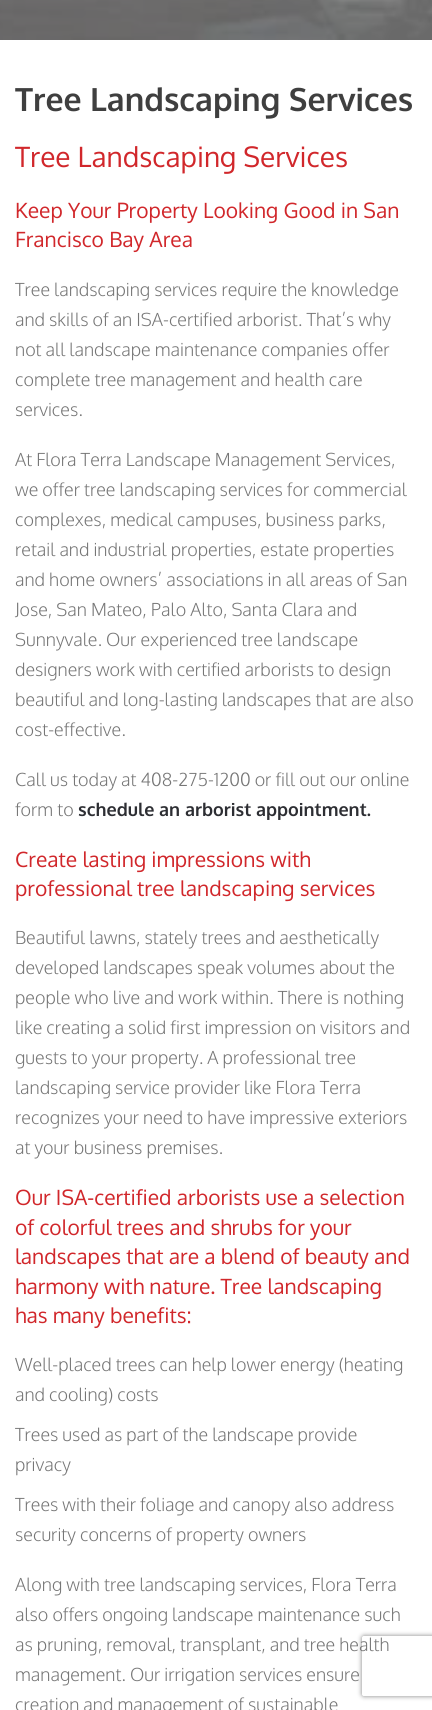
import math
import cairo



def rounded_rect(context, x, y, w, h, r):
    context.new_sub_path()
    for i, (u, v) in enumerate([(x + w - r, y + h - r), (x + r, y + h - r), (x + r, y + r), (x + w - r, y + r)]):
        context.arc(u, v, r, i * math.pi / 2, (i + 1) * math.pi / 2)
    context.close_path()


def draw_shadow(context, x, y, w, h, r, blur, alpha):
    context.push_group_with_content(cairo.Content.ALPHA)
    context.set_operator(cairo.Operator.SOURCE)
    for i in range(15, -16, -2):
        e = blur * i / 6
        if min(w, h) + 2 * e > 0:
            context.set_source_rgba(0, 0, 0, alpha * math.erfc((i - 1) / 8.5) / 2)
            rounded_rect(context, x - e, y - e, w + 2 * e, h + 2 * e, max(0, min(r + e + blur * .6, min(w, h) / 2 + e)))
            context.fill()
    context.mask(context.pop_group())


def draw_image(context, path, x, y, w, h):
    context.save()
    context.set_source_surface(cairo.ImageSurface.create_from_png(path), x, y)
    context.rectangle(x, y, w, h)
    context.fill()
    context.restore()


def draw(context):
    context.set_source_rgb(1, 1, 1)
    context.paint()
    draw_image(context, "images/1.png", 0, 0, 432, 40)
    context.save()
    context.set_fill_rule(cairo.FillRule.EVEN_ODD)
    context.new_path()
    context.move_to(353, 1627)
    context.line_to(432, 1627)
    context.line_to(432, 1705)
    context.line_to(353, 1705)
    context.close_path()
    context.move_to(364, 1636)
    context.line_to(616, 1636)
    context.curve_to(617, 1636, 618, 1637, 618, 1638)
    context.line_to(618, 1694)
    context.curve_to(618, 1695, 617, 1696, 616, 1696)
    context.line_to(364, 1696)
    context.curve_to(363, 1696, 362, 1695, 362, 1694)
    context.line_to(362, 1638)
    context.curve_to(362, 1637, 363, 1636, 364, 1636)
    context.close_path()
    context.clip()
    context.set_source_rgb(128 / 255, 128 / 255, 128 / 255)
    draw_shadow(context, 362, 1636, 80, 60, 2, 2.5, 1)
    context.restore()
    context.select_font_face("Oxygen", cairo.FontSlant.NORMAL, cairo.FontWeight.BOLD)
    context.set_font_size(32)
    context.set_source_rgb(63 / 255, 63 / 255, 63 / 255)
    context.move_to(15, 111)
    context.show_text("Tree Landscaping Services")
    context.select_font_face("Oxygen")
    context.set_font_size(28)
    context.set_source_rgb(209 / 255, 39 / 255, 43 / 255)
    context.move_to(15, 167)
    context.show_text("Tree Landscaping Services")
    context.set_font_size(21)
    context.move_to(15, 218)
    context.show_text("Keep Your Property Looking Good in San")
    context.move_to(15, 247)
    context.show_text("Francisco Bay Area")
    context.select_font_face("Oxygen Light")
    context.set_font_size(18)
    context.set_source_rgb(118 / 255, 118 / 255, 118 / 255)
    context.move_to(15, 296)
    context.show_text("Tree landscaping services require the knowledge")
    context.move_to(15, 326)
    context.show_text("and skills of an ISA-certified arborist. That’s why")
    context.move_to(15, 356)
    context.show_text("not all landscape maintenance companies offer")
    context.move_to(15, 386)
    context.show_text("complete tree management and health care")
    context.move_to(15, 416)
    context.show_text("services.")
    context.move_to(15, 466)
    context.show_text("At Flora Terra Landscape Management Services,")
    context.move_to(15, 496)
    context.show_text("we offer tree landscaping services for commercial")
    context.move_to(15, 526)
    context.show_text("complexes, medical campuses, business parks,")
    context.move_to(15, 556)
    context.show_text("retail and industrial properties, estate properties")
    context.move_to(15, 586)
    context.show_text("and home owners’ associations in all areas of San")
    context.move_to(15, 616)
    context.show_text("Jose, San Mateo, Palo Alto, Santa Clara and")
    context.move_to(15, 646)
    context.show_text("Sunnyvale. Our experienced tree landscape")
    context.move_to(15, 676)
    context.show_text("designers work with certified arborists to design")
    context.move_to(15, 706)
    context.show_text("beautiful and long-lasting landscapes that are also")
    context.move_to(15, 736)
    context.show_text("cost-effective.")
    context.move_to(15, 786)
    context.show_text("Call us today at 408-275-1200 or fill out our online")
    context.move_to(15, 816)
    context.show_text("form to")
    context.select_font_face("Oxygen", cairo.FontSlant.NORMAL, cairo.FontWeight.BOLD)
    context.set_source_rgb(45 / 255, 46 / 255, 51 / 255)
    context.move_to(78, 816)
    context.show_text("schedule an arborist appointment.")
    context.select_font_face("Oxygen")
    context.set_font_size(21)
    context.set_source_rgb(209 / 255, 39 / 255, 43 / 255)
    context.move_to(15, 867)
    context.show_text("Create lasting impressions with")
    context.move_to(15, 896)
    context.show_text("professional tree landscaping services")
    context.select_font_face("Oxygen Light")
    context.set_font_size(18)
    context.set_source_rgb(118 / 255, 118 / 255, 118 / 255)
    context.move_to(15, 944)
    context.show_text("Beautiful lawns, stately trees and aesthetically")
    context.move_to(15, 974)
    context.show_text("developed landscapes speak volumes about the")
    context.move_to(15, 1004)
    context.show_text("people who live and work within. There is nothing")
    context.move_to(15, 1034)
    context.show_text("like creating a solid first impression on visitors and")
    context.move_to(15, 1064)
    context.show_text("guests to your property. A professional tree")
    context.move_to(15, 1094)
    context.show_text("landscaping service provider like Flora Terra")
    context.move_to(15, 1124)
    context.show_text("recognizes your need to have impressive exteriors")
    context.move_to(15, 1154)
    context.show_text("at your business premises.")
    context.select_font_face("Oxygen")
    context.set_font_size(21)
    context.set_source_rgb(209 / 255, 39 / 255, 43 / 255)
    context.move_to(15, 1205)
    context.show_text("Our ISA-certified arborists use a selection")
    context.move_to(15, 1235)
    context.show_text("of colorful trees and shrubs for your")
    context.move_to(15, 1264)
    context.show_text("landscapes that are a blend of beauty and")
    context.move_to(15, 1294)
    context.show_text("harmony with nature. Tree landscaping")
    context.move_to(15, 1323)
    context.show_text("has many benefits:")
    context.select_font_face("Oxygen Light")
    context.set_font_size(18)
    context.set_source_rgb(118 / 255, 118 / 255, 118 / 255)
    context.move_to(15, 1371)
    context.show_text("Well-placed trees can help lower energy (heating")
    context.move_to(15, 1401)
    context.show_text("and cooling) costs")
    context.move_to(15, 1441)
    context.show_text("Trees used as part of the landscape provide")
    context.move_to(15, 1471)
    context.show_text("privacy")
    context.move_to(15, 1511)
    context.show_text("Trees with their foliage and canopy also address")
    context.move_to(15, 1541)
    context.show_text("security concerns of property owners")
    context.move_to(15, 1591)
    context.show_text("Along with tree landscaping services, Flora Terra")
    context.move_to(15, 1621)
    context.show_text("also offers ongoing landscape maintenance such")
    context.move_to(15, 1651)
    context.show_text("as pruning, removal, transplant, and tree health")
    context.move_to(15, 1681)
    context.show_text("management. Our irrigation services ensure")
    context.move_to(15, 1711)
    context.show_text("creation and management of sustainable")


surface = cairo.ImageSurface(cairo.Format.RGB24, 432, 1710)
context = cairo.Context(surface)
options = cairo.FontOptions()
options.set_hint_metrics(cairo.HintMetrics.OFF)
options.set_hint_style(cairo.HintStyle.NONE)
context.set_font_options(options)
context.set_miter_limit(4)
draw(context)
surface.write_to_png("out.png")
